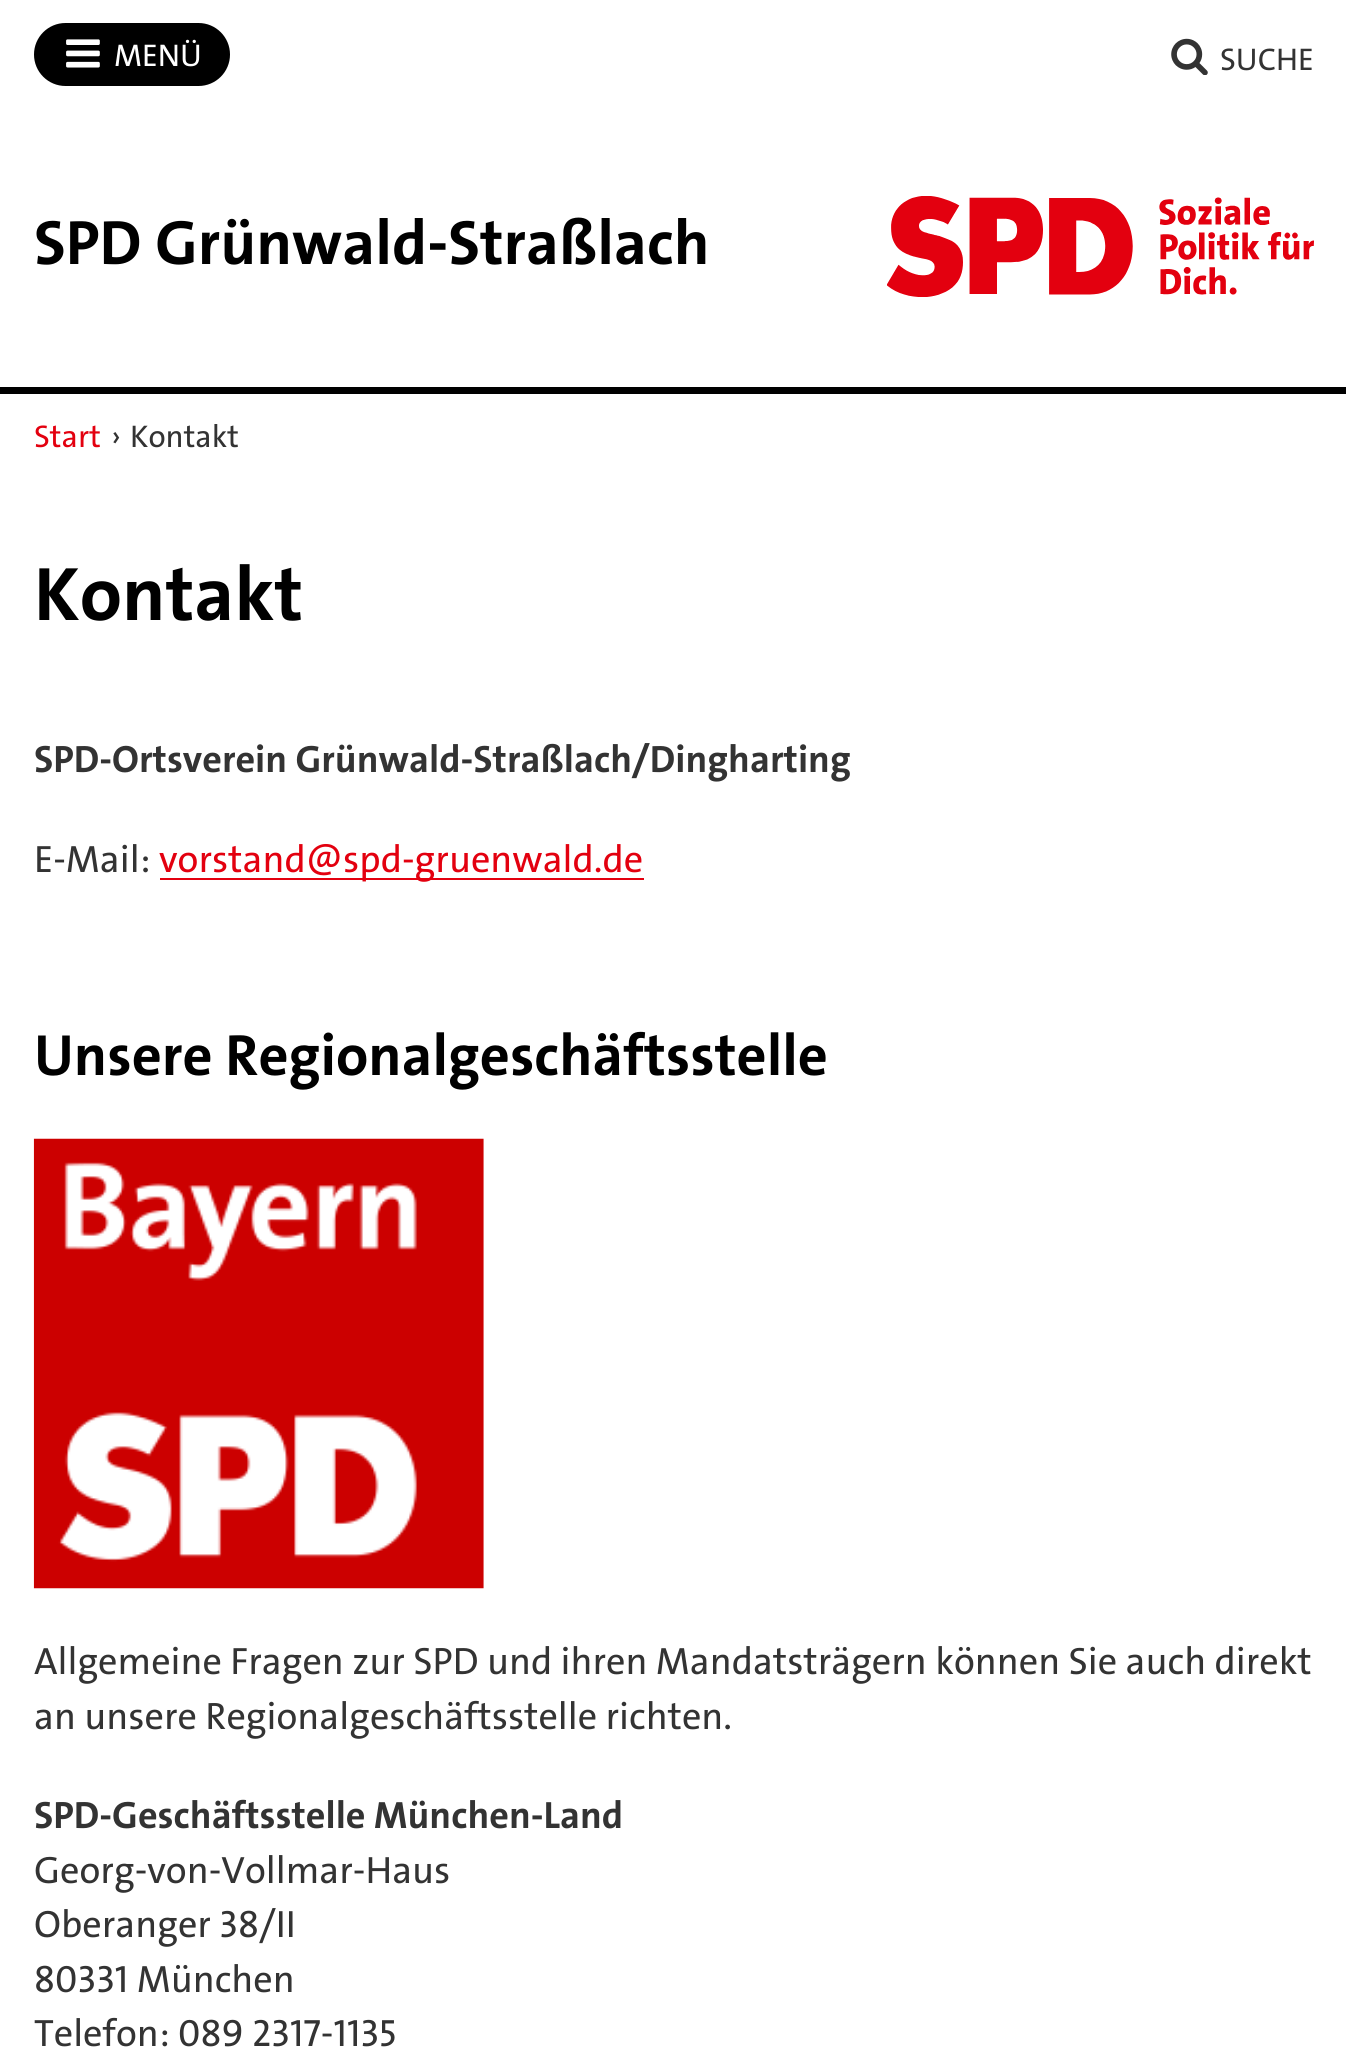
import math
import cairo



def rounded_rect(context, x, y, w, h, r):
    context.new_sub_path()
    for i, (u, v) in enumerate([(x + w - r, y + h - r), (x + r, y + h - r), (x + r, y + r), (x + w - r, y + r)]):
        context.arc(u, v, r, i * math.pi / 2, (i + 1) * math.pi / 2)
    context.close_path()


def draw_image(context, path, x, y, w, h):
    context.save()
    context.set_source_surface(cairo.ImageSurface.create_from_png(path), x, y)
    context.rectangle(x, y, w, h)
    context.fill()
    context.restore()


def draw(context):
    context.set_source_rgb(1, 1, 1)
    context.paint()
    context.set_source_rgb(0, 0, 0)
    rounded_rect(context, 36.5, 25.5, 191, 58, 29)
    context.fill_preserve()
    context.set_line_width(5)
    context.stroke()
    draw_image(context, "images/1.png", 66, 39, 34, 29)
    draw_image(context, "images/2.png", 1171, 38, 37, 37)
    draw_image(context, "images/3.png", 887, 196, 427, 101)
    context.rectangle(0, 387, 1346, 7)
    context.fill()
    context.set_source_rgb(227 / 255, 0, 15 / 255)
    context.rectangle(160, 878, 484, 2)
    context.fill()
    draw_image(context, "images/4.png", 33, 1138, 451, 451)
    context.select_font_face("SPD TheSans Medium")
    context.set_font_size(31.5)
    context.set_source_rgb(1, 1, 1)
    context.move_to(114, 66)
    context.show_text("MENÜ")
    context.set_source_rgb(51 / 255, 51 / 255, 51 / 255)
    context.move_to(1220, 70)
    context.show_text("SUCHE")
    context.select_font_face("SPD TheSans", cairo.FontSlant.NORMAL, cairo.FontWeight.BOLD)
    context.set_font_size(63)
    context.set_source_rgb(0, 0, 0)
    context.move_to(34, 264)
    context.show_text("SPD Grünwald-Straßlach")
    context.select_font_face("SPD TheSans Medium")
    context.set_font_size(31.5)
    context.set_source_rgb(227 / 255, 0, 15 / 255)
    context.move_to(34, 447)
    context.show_text("Start")
    context.set_source_rgb(51 / 255, 51 / 255, 51 / 255)
    context.move_to(111, 447)
    context.show_text("›")
    context.move_to(130, 447)
    context.show_text("Kontakt")
    context.select_font_face("SPD TheSans", cairo.FontSlant.NORMAL, cairo.FontWeight.BOLD)
    context.set_font_size(76.5)
    context.set_source_rgb(0, 0, 0)
    context.move_to(34, 620)
    context.show_text("Kontakt")
    context.set_font_size(38.25)
    context.set_source_rgb(51 / 255, 51 / 255, 51 / 255)
    context.move_to(34, 772)
    context.show_text("SPD-Ortsverein Grünwald-Straßlach/Dingharting")
    context.select_font_face("SPD TheSans Medium")
    context.move_to(34, 872)
    context.show_text("E-Mail:")
    context.set_source_rgb(227 / 255, 0, 15 / 255)
    context.move_to(159, 872)
    context.show_text("vorstand@spd-gruenwald.de")
    context.select_font_face("SPD TheSans", cairo.FontSlant.NORMAL, cairo.FontWeight.BOLD)
    context.set_font_size(58.5)
    context.set_source_rgb(0, 0, 0)
    context.move_to(34, 1075)
    context.show_text("Unsere Regionalgeschäftsstelle")
    context.select_font_face("SPD TheSans Medium")
    context.set_font_size(38.25)
    context.set_source_rgb(51 / 255, 51 / 255, 51 / 255)
    context.move_to(34, 1674)
    context.show_text("Allgemeine Fragen zur SPD und ihren Mandatsträgern können Sie auch direkt")
    context.move_to(34, 1729)
    context.show_text("an unsere Regionalgeschäftsstelle richten.")
    context.select_font_face("SPD TheSans", cairo.FontSlant.NORMAL, cairo.FontWeight.BOLD)
    context.move_to(34, 1828)
    context.show_text("SPD-Geschäftsstelle München-Land")
    context.select_font_face("SPD TheSans Medium")
    context.move_to(34, 1883)
    context.show_text("Georg-von-Vollmar-Haus")
    context.move_to(34, 1937)
    context.show_text("Oberanger 38/II")
    context.move_to(34, 1992)
    context.show_text("80331 München")
    context.move_to(34, 2046)
    context.show_text("Telefon: 089 2317-1135")


surface = cairo.ImageSurface(cairo.Format.RGB24, 1346, 2053)
context = cairo.Context(surface)
options = cairo.FontOptions()
options.set_hint_metrics(cairo.HintMetrics.OFF)
options.set_hint_style(cairo.HintStyle.NONE)
context.set_font_options(options)
context.set_miter_limit(4)
draw(context)
surface.write_to_png("out.png")
